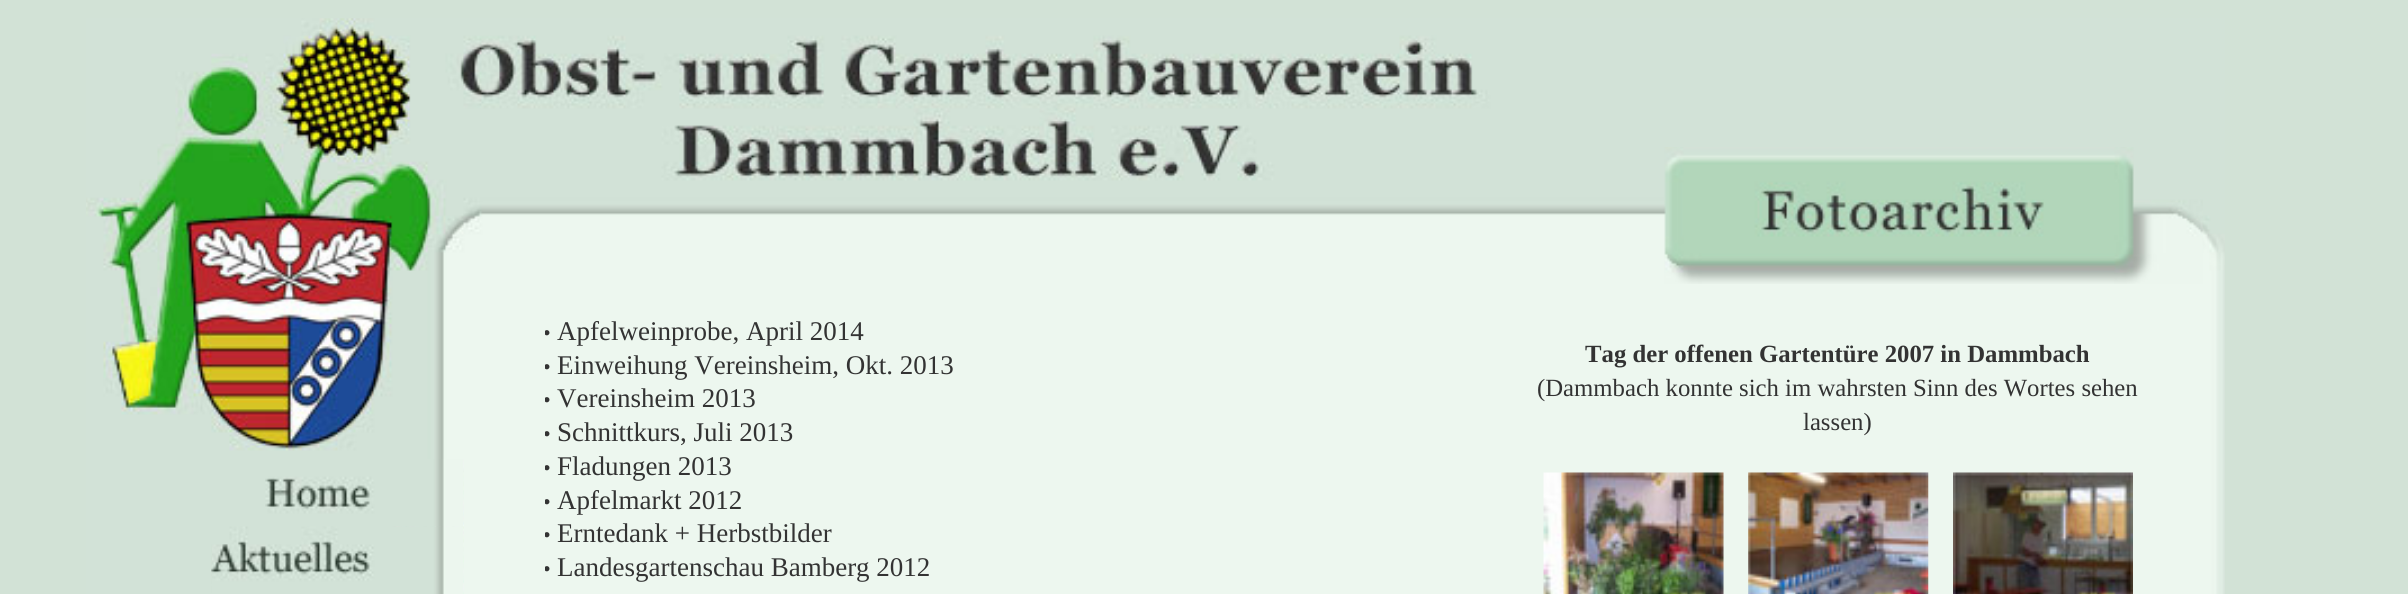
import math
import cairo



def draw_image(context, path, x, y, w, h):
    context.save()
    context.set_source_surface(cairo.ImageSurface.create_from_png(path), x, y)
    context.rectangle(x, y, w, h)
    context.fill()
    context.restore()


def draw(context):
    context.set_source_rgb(210 / 255, 226 / 255, 214 / 255)
    context.paint()
    draw_image(context, "images/1.png", 86, 18, 2139, 576)
    draw_image(context, "images/2.png", 1664, 147, 539, 137)
    draw_image(context, "images/3.png", 1543, 472, 181, 122)
    draw_image(context, "images/4.png", 1748, 472, 181, 122)
    draw_image(context, "images/5.png", 1953, 472, 180, 122)
    draw_image(context, "images/6.png", 463, 459, 1, 70)
    draw_image(context, "images/7.png", 265, 459, 198, 68)
    draw_image(context, "images/8.png", 211, 526, 253, 68)
    draw_image(context, "images/9.png", 212, 526, 251, 68)
    context.save()
    context.rectangle(545, 284, 843, 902)
    context.clip()
    context.select_font_face("Liberation Serif")
    context.set_font_size(22)
    context.set_source_rgb(51 / 255, 51 / 255, 51 / 255)
    context.move_to(543, 340)
    context.show_text("•")
    context.restore()
    context.select_font_face("Liberation Serif")
    context.set_font_size(27)
    context.set_source_rgb(51 / 255, 51 / 255, 51 / 255)
    context.move_to(557, 340)
    context.show_text("Apfelweinprobe, April 2014")
    context.save()
    context.rectangle(545, 284, 843, 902)
    context.clip()
    context.set_font_size(22)
    context.move_to(543, 374)
    context.show_text("•")
    context.restore()
    context.move_to(557, 374)
    context.show_text("Einweihung Vereinsheim, Okt. 2013")
    context.save()
    context.rectangle(545, 284, 843, 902)
    context.clip()
    context.set_font_size(22)
    context.move_to(543, 407)
    context.show_text("•")
    context.restore()
    context.move_to(557, 407)
    context.show_text("Vereinsheim 2013")
    context.save()
    context.rectangle(545, 284, 843, 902)
    context.clip()
    context.set_font_size(22)
    context.move_to(543, 441)
    context.show_text("•")
    context.restore()
    context.move_to(557, 441)
    context.show_text("Schnittkurs, Juli 2013")
    context.save()
    context.rectangle(545, 284, 843, 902)
    context.clip()
    context.set_font_size(22)
    context.move_to(543, 475)
    context.show_text("•")
    context.restore()
    context.move_to(557, 475)
    context.show_text("Fladungen 2013")
    context.save()
    context.rectangle(545, 284, 843, 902)
    context.clip()
    context.set_font_size(22)
    context.move_to(543, 509)
    context.show_text("•")
    context.restore()
    context.move_to(557, 509)
    context.show_text("Apfelmarkt 2012")
    context.save()
    context.rectangle(545, 284, 843, 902)
    context.clip()
    context.set_font_size(22)
    context.move_to(543, 542)
    context.show_text("•")
    context.restore()
    context.move_to(557, 542)
    context.show_text("Erntedank + Herbstbilder")
    context.save()
    context.rectangle(545, 284, 843, 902)
    context.clip()
    context.set_font_size(22)
    context.move_to(543, 576)
    context.show_text("•")
    context.restore()
    context.move_to(557, 576)
    context.show_text("Landesgartenschau Bamberg 2012")
    context.select_font_face("Liberation Serif", cairo.FontSlant.NORMAL, cairo.FontWeight.BOLD)
    context.set_font_size(24.75)
    context.move_to(1585, 362)
    context.show_text("Tag der offenen Gartentüre 2007 in Dammbach")
    context.select_font_face("Liberation Serif")
    context.move_to(1537, 396)
    context.show_text("(Dammbach konnte sich im wahrsten Sinn des Wortes sehen")
    context.move_to(1803, 430)
    context.show_text("lassen)")


surface = cairo.ImageSurface(cairo.Format.RGB24, 2408, 594)
context = cairo.Context(surface)
options = cairo.FontOptions()
options.set_hint_metrics(cairo.HintMetrics.OFF)
options.set_hint_style(cairo.HintStyle.NONE)
context.set_font_options(options)
context.set_miter_limit(4)
draw(context)
surface.write_to_png("out.png")
